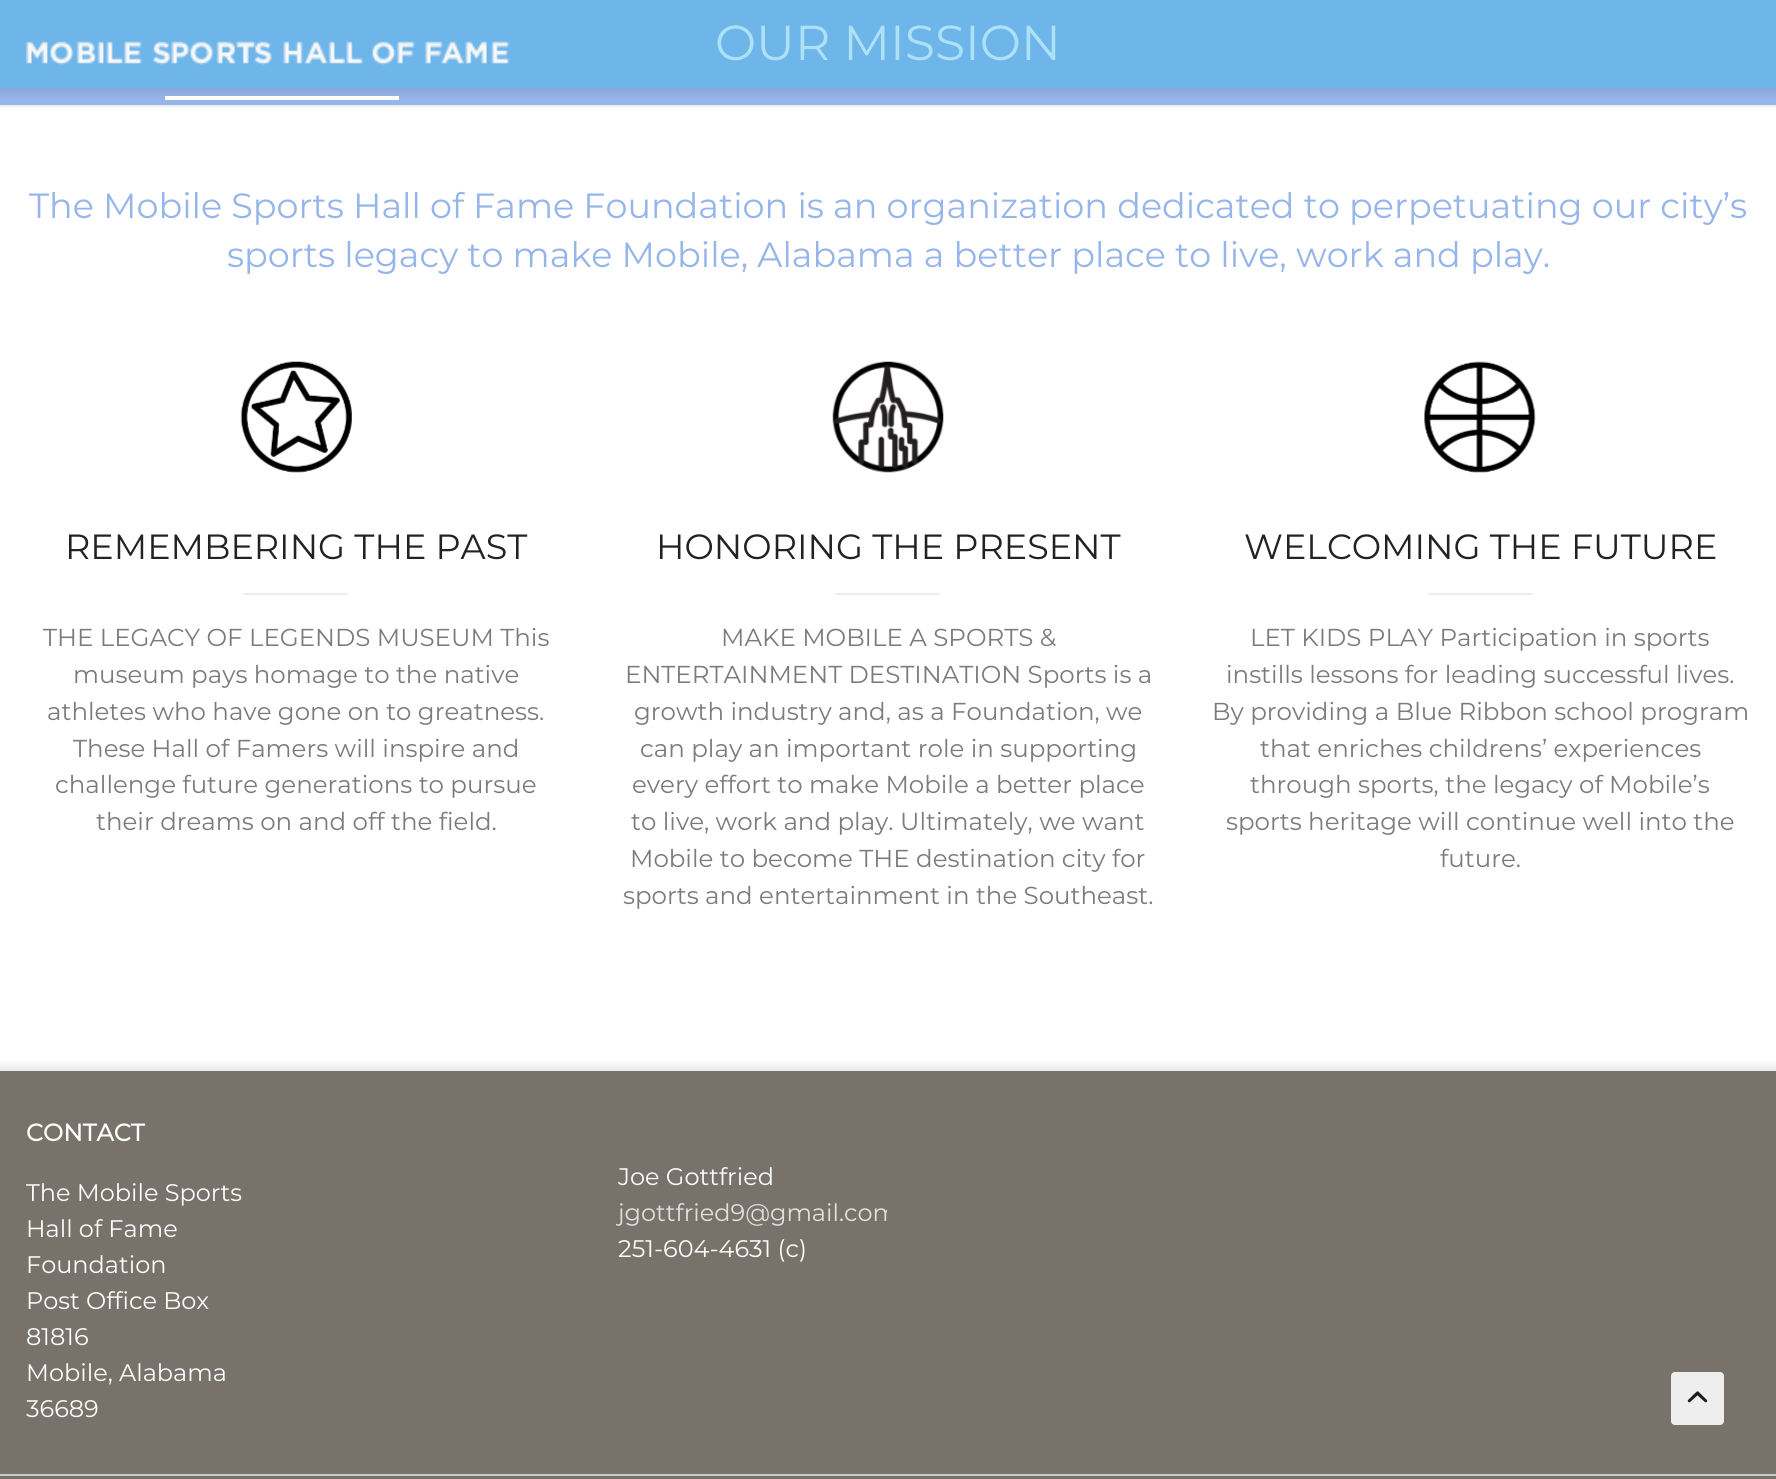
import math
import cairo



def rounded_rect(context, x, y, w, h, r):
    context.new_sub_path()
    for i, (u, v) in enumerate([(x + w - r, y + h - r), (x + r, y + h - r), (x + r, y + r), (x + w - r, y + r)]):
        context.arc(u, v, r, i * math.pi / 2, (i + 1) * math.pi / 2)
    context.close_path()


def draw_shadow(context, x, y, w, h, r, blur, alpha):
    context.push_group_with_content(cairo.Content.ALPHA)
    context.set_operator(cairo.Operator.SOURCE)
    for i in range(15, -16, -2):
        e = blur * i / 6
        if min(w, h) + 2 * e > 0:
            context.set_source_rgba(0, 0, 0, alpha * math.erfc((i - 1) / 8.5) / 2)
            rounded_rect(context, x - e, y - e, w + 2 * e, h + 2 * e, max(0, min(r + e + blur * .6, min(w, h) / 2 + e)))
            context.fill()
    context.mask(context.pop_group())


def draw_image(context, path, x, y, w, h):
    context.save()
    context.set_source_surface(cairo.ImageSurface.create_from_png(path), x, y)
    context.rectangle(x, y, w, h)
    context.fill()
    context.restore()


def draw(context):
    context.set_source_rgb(1, 1, 1)
    context.paint()
    context.set_source_rgb(150 / 255, 181 / 255, 234 / 255)
    context.rectangle(0, 88, 1776, 17)
    context.fill()
    context.set_source_rgb(127 / 255, 181 / 255, 234 / 255)
    context.rectangle(0, 0, 1776, 88)
    context.fill()
    context.set_source_rgb(238 / 255, 238 / 255, 238 / 255)
    context.rectangle(0, 105, 1776, 2)
    context.fill()
    context.save()
    context.set_fill_rule(cairo.FillRule.EVEN_ODD)
    context.new_path()
    context.move_to(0, 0)
    context.line_to(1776, 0)
    context.line_to(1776, 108)
    context.line_to(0, 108)
    context.close_path()
    context.move_to(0, 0)
    context.line_to(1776, 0)
    context.line_to(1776, 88)
    context.line_to(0, 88)
    context.close_path()
    context.clip()
    context.set_source_rgb(0, 0, 0)
    draw_shadow(context, -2, 2, 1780, 91, 0, 4.5, 0.1)
    context.restore()
    context.set_source_rgb(1, 1, 1)
    context.rectangle(165, 96, 234, 4)
    context.fill()
    draw_image(context, "images/2.png", 240, 361, 112, 112)
    context.set_source_rgb(238 / 255, 238 / 255, 238 / 255)
    context.rectangle(243, 593, 105, 2)
    context.fill()
    draw_image(context, "images/3.png", 832, 361, 112, 112)
    context.rectangle(835, 593, 105, 2)
    context.fill()
    draw_image(context, "images/4.png", 1424, 361, 112, 112)
    context.rectangle(1428, 593, 105, 2)
    context.fill()
    context.set_source_rgb(0, 0, 0)
    draw_shadow(context, -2, 1066, 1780, 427, 0, 4.5, 0.1)
    context.set_source_rgb(121 / 255, 114 / 255, 107 / 255)
    context.rectangle(0, 1071, 1776, 408)
    context.fill()
    context.set_source_rgb(238 / 255, 238 / 255, 238 / 255)
    rounded_rect(context, 1671, 1372, 53, 53, 4)
    context.fill()
    draw_image(context, "images/5.png", 1687, 1391, 21, 12)
    context.set_source_rgb(204 / 255, 204 / 255, 204 / 255)
    context.rectangle(0, 1474, 1776, 2)
    context.fill()
    context.select_font_face("Montserrat Thin")
    context.set_font_size(49)
    context.set_source_rgb(208 / 255, 238 / 255, 250 / 255)
    context.move_to(715, 60)
    context.show_text("OUR MISSION")
    context.set_source_rgba(52 / 255, 179 / 255, 232 / 255, 0.23)
    context.rectangle(0, 0, 1776, 88)
    context.fill()
    draw_image(context, "images/1.png", 26, 41, 484, 24)
    context.set_font_size(35)
    context.set_source_rgb(150 / 255, 181 / 255, 234 / 255)
    context.move_to(29, 218)
    context.show_text("The Mobile Sports Hall of Fame Foundation is an organization dedicated to perpetuating our city’s")
    context.move_to(227, 267)
    context.show_text("sports legacy to make Mobile, Alabama a better place to live, work and play.")
    context.set_source_rgb(34 / 255, 34 / 255, 34 / 255)
    context.move_to(65, 559)
    context.show_text("REMEMBERING THE PAST")
    context.set_font_size(24.5)
    context.set_source_rgb(123 / 255, 123 / 255, 123 / 255)
    context.move_to(43, 646)
    context.show_text("THE LEGACY OF LEGENDS MUSEUM This")
    context.move_to(73, 683)
    context.show_text("museum pays homage to the native")
    context.move_to(47, 720)
    context.show_text("athletes who have gone on to greatness.")
    context.move_to(73, 757)
    context.show_text("These Hall of Famers will inspire and")
    context.move_to(55, 793)
    context.show_text("challenge future generations to pursue")
    context.move_to(96, 830)
    context.show_text("their dreams on and off the field.")
    context.set_font_size(35)
    context.set_source_rgb(34 / 255, 34 / 255, 34 / 255)
    context.move_to(656, 559)
    context.show_text("HONORING THE PRESENT")
    context.set_font_size(24.5)
    context.set_source_rgb(123 / 255, 123 / 255, 123 / 255)
    context.move_to(721, 646)
    context.show_text("MAKE MOBILE A SPORTS &")
    context.move_to(625, 683)
    context.show_text("ENTERTAINMENT DESTINATION Sports is a")
    context.move_to(634, 720)
    context.show_text("growth industry and, as a Foundation, we")
    context.move_to(640, 757)
    context.show_text("can play an important role in supporting")
    context.move_to(632, 793)
    context.show_text("every effort to make Mobile a better place")
    context.move_to(631, 830)
    context.show_text("to live, work and play. Ultimately, we want")
    context.move_to(630, 867)
    context.show_text("Mobile to become THE destination city for")
    context.move_to(623, 904)
    context.show_text("sports and entertainment in the Southeast.")
    context.set_font_size(35)
    context.set_source_rgb(34 / 255, 34 / 255, 34 / 255)
    context.move_to(1244, 559)
    context.show_text("WELCOMING THE FUTURE")
    context.set_font_size(24.5)
    context.set_source_rgb(123 / 255, 123 / 255, 123 / 255)
    context.move_to(1250, 646)
    context.show_text("LET KIDS PLAY Participation in sports")
    context.move_to(1226, 683)
    context.show_text("instills lessons for leading successful lives.")
    context.move_to(1212, 720)
    context.show_text("By providing a Blue Ribbon school program")
    context.move_to(1260, 757)
    context.show_text("that enriches childrens’ experiences")
    context.move_to(1250, 793)
    context.show_text("through sports, the legacy of Mobile’s")
    context.move_to(1226, 830)
    context.show_text("sports heritage will continue well into the")
    context.move_to(1440, 867)
    context.show_text("future.")
    context.select_font_face("Montserrat", cairo.FontSlant.NORMAL, cairo.FontWeight.BOLD)
    context.set_font_size(24)
    context.set_source_rgb(252 / 255, 252 / 255, 252 / 255)
    context.move_to(26, 1141)
    context.show_text("CONTACT")
    context.select_font_face("Montserrat Thin")
    context.move_to(26, 1201)
    context.show_text("The Mobile Sports")
    context.move_to(26, 1237)
    context.show_text("Hall of Fame")
    context.move_to(26, 1273)
    context.show_text("Foundation")
    context.move_to(26, 1309)
    context.show_text("Post Office Box")
    context.move_to(26, 1345)
    context.show_text("81816")
    context.move_to(26, 1381)
    context.show_text("Mobile, Alabama")
    context.move_to(26, 1417)
    context.show_text("36689")
    context.move_to(618, 1185)
    context.show_text("Joe Gottfried")
    context.save()
    context.rectangle(592, 1071, 295, 219)
    context.clip()
    context.set_source_rgb(226 / 255, 224 / 255, 223 / 255)
    context.move_to(618, 1221)
    context.show_text("jgottfried9@gmail.com")
    context.restore()
    context.move_to(618, 1257)
    context.show_text("251-604-4631 (c)")


surface = cairo.ImageSurface(cairo.Format.RGB24, 1776, 1479)
context = cairo.Context(surface)
options = cairo.FontOptions()
options.set_hint_metrics(cairo.HintMetrics.OFF)
options.set_hint_style(cairo.HintStyle.NONE)
context.set_font_options(options)
context.set_miter_limit(4)
draw(context)
surface.write_to_png("out.png")
